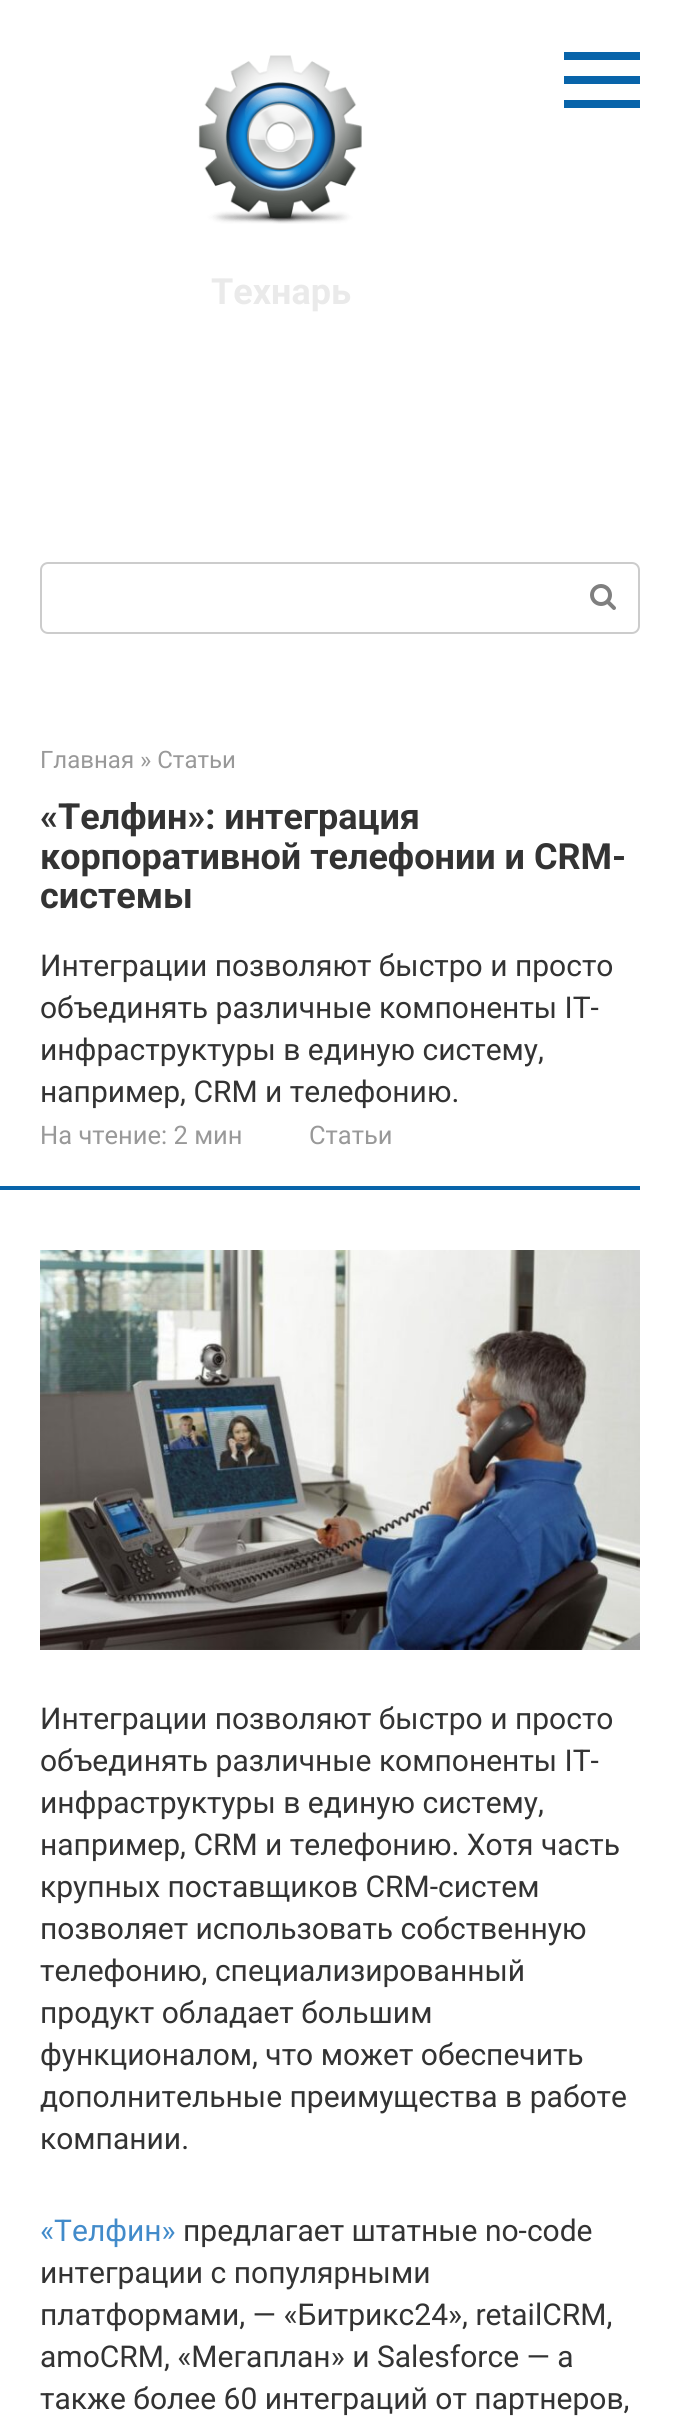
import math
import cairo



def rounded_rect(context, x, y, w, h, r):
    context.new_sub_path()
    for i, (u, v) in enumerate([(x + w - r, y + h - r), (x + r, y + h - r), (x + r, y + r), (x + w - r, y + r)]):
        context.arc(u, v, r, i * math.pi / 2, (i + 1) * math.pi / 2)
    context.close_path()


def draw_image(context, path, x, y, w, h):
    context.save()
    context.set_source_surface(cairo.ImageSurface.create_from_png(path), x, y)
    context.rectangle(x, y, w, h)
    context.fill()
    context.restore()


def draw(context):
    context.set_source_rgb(1, 1, 1)
    context.paint()
    context.set_source_rgb(8 / 255, 100 / 255, 170 / 255)
    context.rectangle(564, 52, 76, 8)
    context.fill()
    context.rectangle(564, 100, 76, 8)
    context.fill()
    context.rectangle(564, 76, 76, 8)
    context.fill()
    draw_image(context, "images/1.png", 198, 55, 164, 169)
    rounded_rect(context, 41, 563, 598, 70, 7)
    context.set_source_rgb(204 / 255, 204 / 255, 204 / 255)
    context.stroke()
    draw_image(context, "images/2.png", 590, 584, 26, 26)
    context.set_source_rgb(8 / 255, 100 / 255, 170 / 255)
    context.rectangle(0, 1186, 640, 4)
    context.fill()
    draw_image(context, "images/3.png", 40, 1250, 600, 400)
    context.select_font_face("Roboto", cairo.FontSlant.NORMAL, cairo.FontWeight.BOLD)
    context.set_font_size(36)
    context.set_source_rgb(234 / 255, 234 / 255, 234 / 255)
    context.move_to(211, 304)
    context.show_text("Технарь")
    context.select_font_face("Roboto")
    context.set_font_size(24)
    context.set_source_rgb(153 / 255, 153 / 255, 153 / 255)
    context.move_to(40, 768)
    context.show_text("Главная » Статьи")
    context.select_font_face("Roboto", cairo.FontSlant.NORMAL, cairo.FontWeight.BOLD)
    context.set_font_size(36)
    context.set_source_rgb(51 / 255, 51 / 255, 51 / 255)
    context.move_to(40, 829)
    context.show_text("«Телфин»: интеграция")
    context.move_to(40, 869)
    context.show_text("корпоративной телефонии и CRM-")
    context.move_to(40, 908)
    context.show_text("системы")
    context.select_font_face("Roboto")
    context.set_font_size(30)
    context.move_to(40, 976)
    context.show_text("Интеграции позволяют быстро и просто")
    context.move_to(40, 1018)
    context.show_text("объединять различные компоненты IT-")
    context.move_to(40, 1060)
    context.show_text("инфраструктуры в единую систему,")
    context.move_to(40, 1102)
    context.show_text("например, CRM и телефонию.")
    context.set_font_size(25.5)
    context.set_source_rgb(153 / 255, 153 / 255, 153 / 255)
    context.move_to(40, 1144)
    context.show_text("На чтение: 2 мин")
    context.move_to(309, 1144)
    context.show_text("Статьи")
    context.set_font_size(30)
    context.set_source_rgb(51 / 255, 51 / 255, 51 / 255)
    context.move_to(40, 1729)
    context.show_text("Интеграции позволяют быстро и просто")
    context.move_to(40, 1771)
    context.show_text("объединять различные компоненты IT-")
    context.move_to(40, 1813)
    context.show_text("инфраструктуры в единую систему,")
    context.move_to(40, 1855)
    context.show_text("например, CRM и телефонию. Хотя часть")
    context.move_to(40, 1897)
    context.show_text("крупных поставщиков CRM-систем")
    context.move_to(40, 1939)
    context.show_text("позволяет использовать собственную")
    context.move_to(40, 1981)
    context.show_text("телефонию, специализированный")
    context.move_to(40, 2023)
    context.show_text("продукт обладает большим")
    context.move_to(40, 2065)
    context.show_text("функционалом, что может обеспечить")
    context.move_to(40, 2107)
    context.show_text("дополнительные преимущества в работе")
    context.move_to(40, 2149)
    context.show_text("компании.")
    context.set_source_rgb(66 / 255, 139 / 255, 202 / 255)
    context.move_to(40, 2241)
    context.show_text("«Телфин»")
    context.set_source_rgb(51 / 255, 51 / 255, 51 / 255)
    context.move_to(183, 2241)
    context.show_text("предлагает штатные no-code")
    context.move_to(40, 2283)
    context.show_text("интеграции с популярными")
    context.move_to(40, 2325)
    context.show_text("платформами, — «Битрикс24», retailCRM,")
    context.move_to(40, 2367)
    context.show_text("amoCRM, «Мегаплан» и Salesforce — а")
    context.move_to(40, 2409)
    context.show_text("также более 60 интеграций от партнеров,")


surface = cairo.ImageSurface(cairo.Format.RGB24, 679, 2436)
context = cairo.Context(surface)
options = cairo.FontOptions()
options.set_hint_metrics(cairo.HintMetrics.OFF)
options.set_hint_style(cairo.HintStyle.NONE)
context.set_font_options(options)
context.set_miter_limit(4)
draw(context)
surface.write_to_png("out.png")
